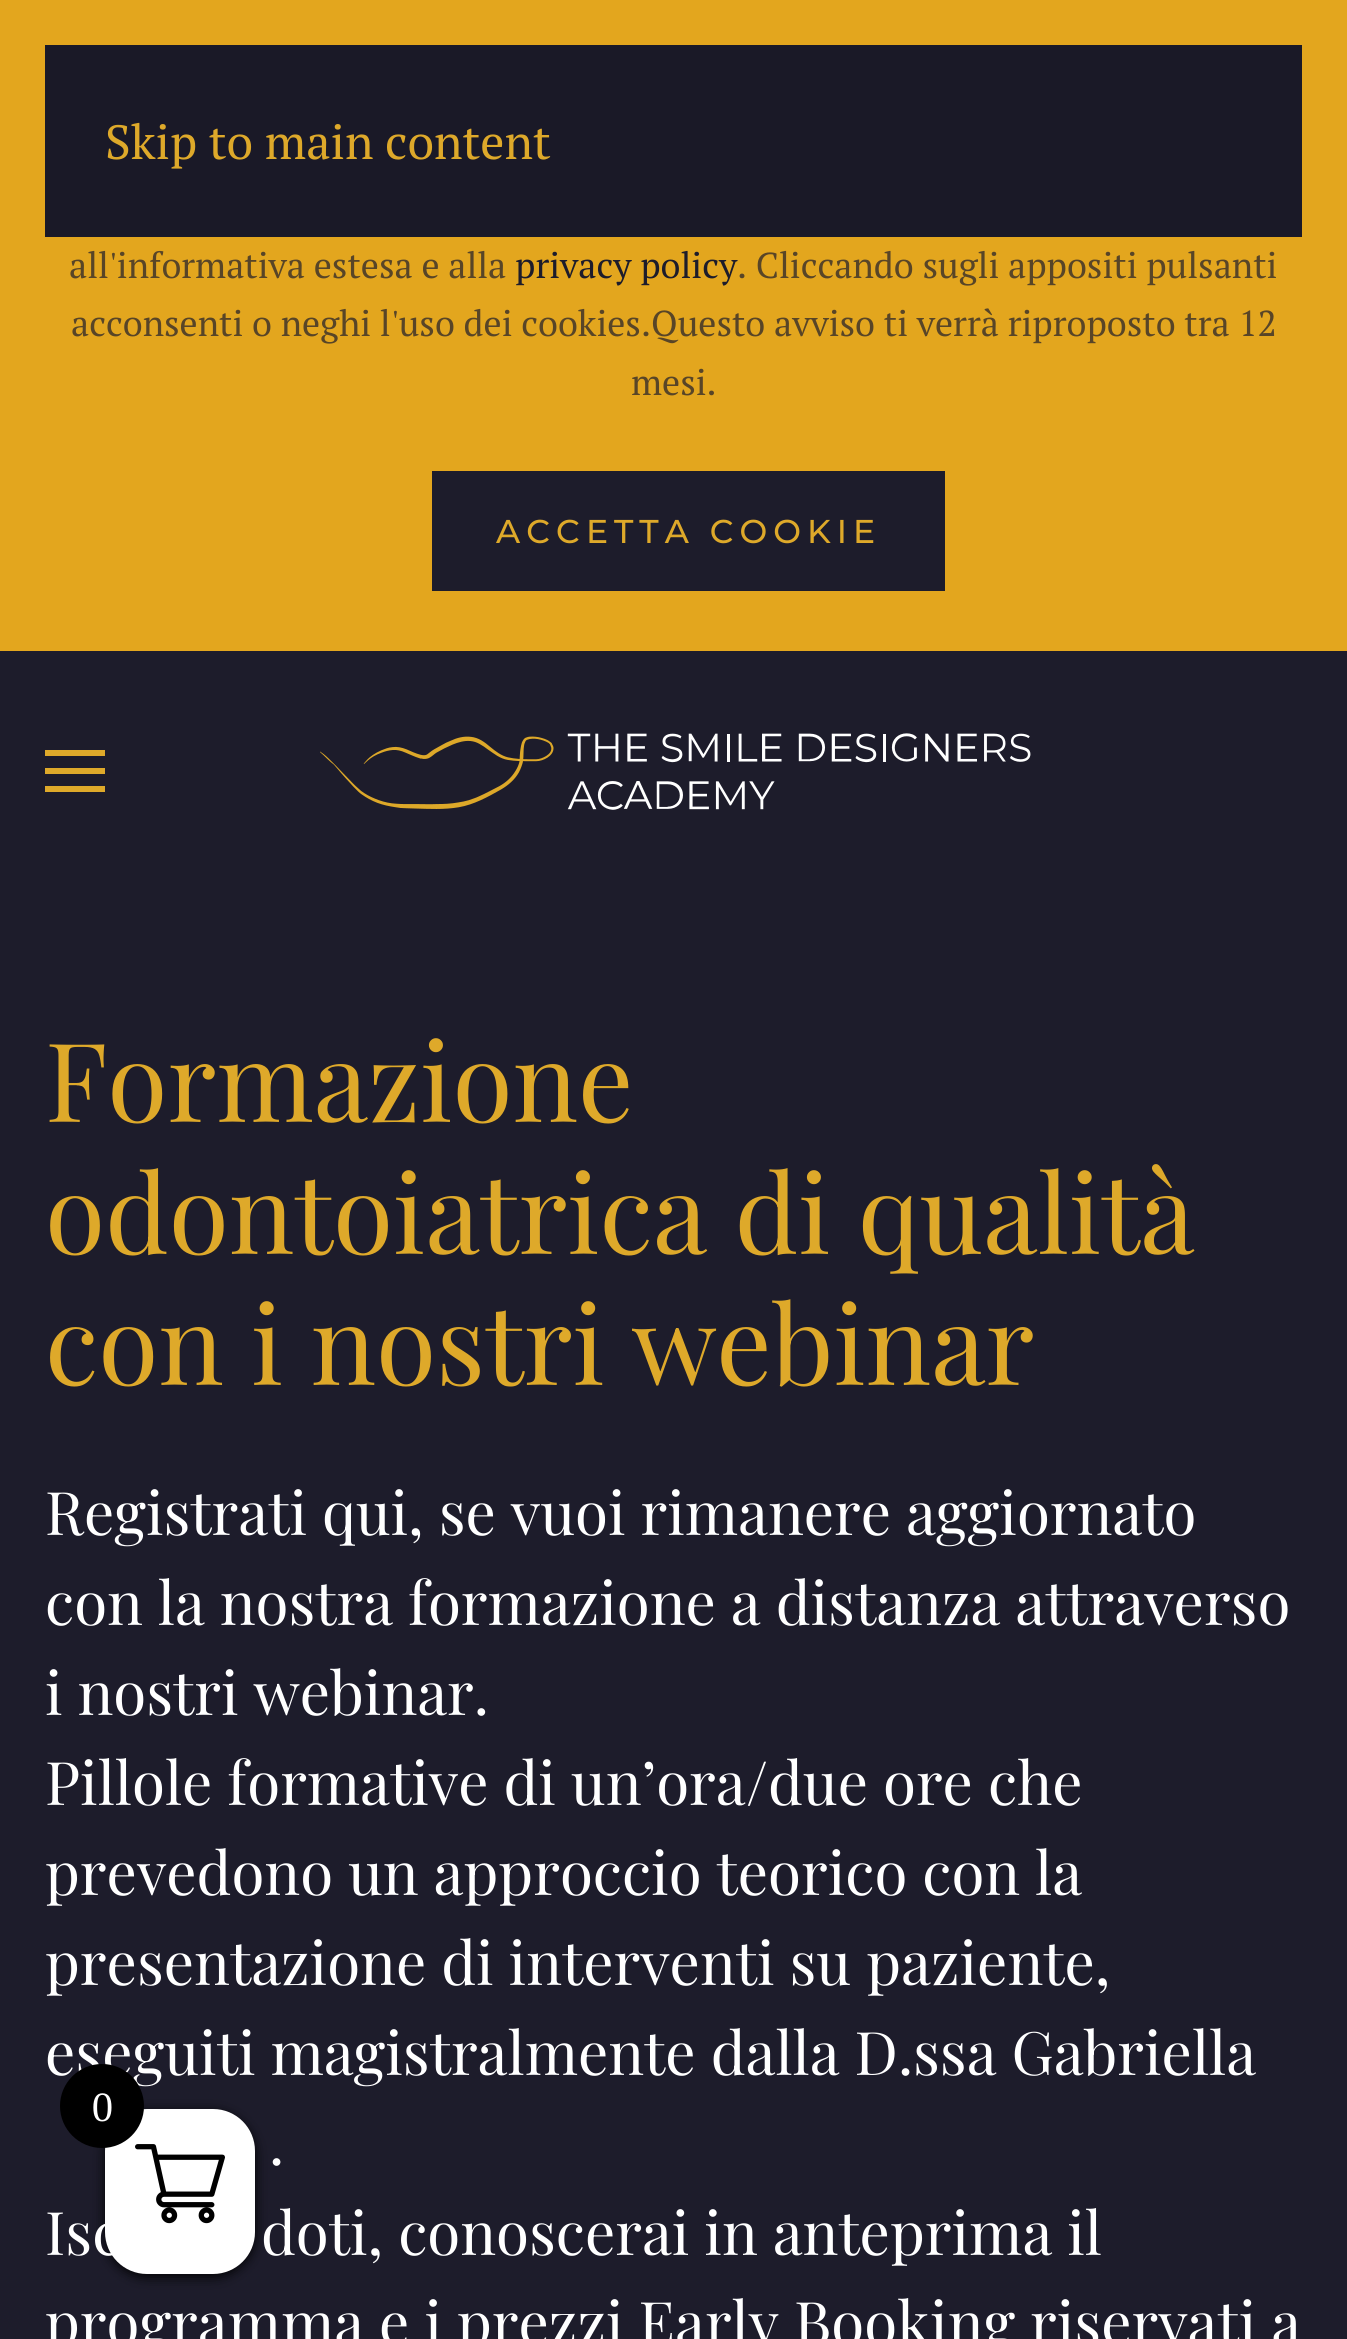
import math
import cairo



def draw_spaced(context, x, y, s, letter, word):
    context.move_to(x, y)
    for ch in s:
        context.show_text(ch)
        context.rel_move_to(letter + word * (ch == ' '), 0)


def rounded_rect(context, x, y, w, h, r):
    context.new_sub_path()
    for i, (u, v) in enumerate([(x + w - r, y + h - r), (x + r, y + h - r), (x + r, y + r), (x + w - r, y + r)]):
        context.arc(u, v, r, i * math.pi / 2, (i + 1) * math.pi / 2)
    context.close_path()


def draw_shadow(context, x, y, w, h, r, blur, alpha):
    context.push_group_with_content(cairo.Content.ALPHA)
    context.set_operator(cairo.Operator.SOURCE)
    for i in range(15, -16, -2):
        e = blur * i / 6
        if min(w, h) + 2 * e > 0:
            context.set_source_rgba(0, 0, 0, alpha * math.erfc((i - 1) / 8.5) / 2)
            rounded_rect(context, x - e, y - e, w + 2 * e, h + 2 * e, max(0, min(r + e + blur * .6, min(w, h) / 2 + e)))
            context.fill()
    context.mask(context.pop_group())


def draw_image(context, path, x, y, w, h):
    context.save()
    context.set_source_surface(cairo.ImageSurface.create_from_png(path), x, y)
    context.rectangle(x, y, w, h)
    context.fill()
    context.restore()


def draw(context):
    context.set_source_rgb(29 / 255, 28 / 255, 43 / 255)
    context.paint()
    context.set_source_rgb(227 / 255, 166 / 255, 30 / 255)
    context.rectangle(0, 0, 1347, 651)
    context.fill()
    context.set_source_rgb(26 / 255, 25 / 255, 39 / 255)
    context.rectangle(45, 45, 1257, 192)
    context.fill()
    context.set_source_rgb(29 / 255, 28 / 255, 43 / 255)
    context.rectangle(432, 471, 513, 120)
    context.fill()
    context.set_source_rgb(222 / 255, 169 / 255, 42 / 255)
    context.rectangle(45, 750, 60, 6)
    context.fill()
    context.rectangle(45, 768, 60, 6)
    context.fill()
    context.rectangle(45, 786, 60, 6)
    context.fill()
    draw_image(context, "images/1.png", 320, 733, 711, 77)
    context.set_source_rgb(0, 0, 0)
    draw_shadow(context, 105, 2112, 150, 165, 42, 6, 1)
    context.set_source_rgb(1, 1, 1)
    rounded_rect(context, 105, 2109, 150, 165, 42)
    context.fill()
    draw_image(context, "images/2.png", 135, 2144, 90, 80)
    context.select_font_face("PT Serif")
    context.set_font_size(48)
    context.set_source_rgb(222 / 255, 169 / 255, 42 / 255)
    context.move_to(105, 159)
    context.show_text("Skip to main content")
    context.set_font_size(36)
    context.set_source_rgb(88 / 255, 69 / 255, 39 / 255)
    context.move_to(69, 278)
    context.show_text("all'informativa estesa e alla")
    context.set_source_rgb(29 / 255, 28 / 255, 43 / 255)
    context.move_to(515, 278)
    context.show_text("privacy policy")
    context.set_source_rgb(88 / 255, 69 / 255, 39 / 255)
    context.move_to(737, 278)
    context.show_text(". Cliccando sugli appositi pulsanti")
    context.move_to(71, 336)
    context.show_text("acconsenti o neghi l'uso dei cookies.Questo avviso ti verrà riproposto tra 12")
    context.move_to(631, 395)
    context.show_text("mesi.")
    context.select_font_face("Montserrat Medium")
    context.set_font_size(33)
    context.set_source_rgb(222 / 255, 169 / 255, 42 / 255)
    draw_spaced(context, 496, 543, "ACCETTA COOKIE", 6, 0)
    context.select_font_face("Playfair Display")
    context.set_font_size(109.6)
    context.move_to(45, 1122)
    context.show_text("Formazione")
    context.move_to(45, 1254)
    context.show_text("odontoiatrica di qualità")
    context.move_to(45, 1385)
    context.show_text("con i nostri webinar")
    context.set_font_size(60)
    context.set_source_rgb(1, 1, 1)
    context.move_to(45, 1535)
    context.show_text("Registrati qui, se vuoi rimanere aggiornato")
    context.move_to(45, 1625)
    context.show_text("con la nostra formazione a distanza attraverso")
    context.move_to(45, 1715)
    context.show_text("i nostri webinar.")
    context.move_to(45, 1805)
    context.show_text("Pillole formative di un’ora/due ore che")
    context.move_to(45, 1895)
    context.show_text("prevedono un approccio teorico con la")
    context.move_to(45, 1985)
    context.show_text("presentazione di interventi su paziente,")
    context.move_to(45, 2075)
    context.show_text("eseguiti magistralmente dalla D.ssa Gabriella")
    context.move_to(269, 2165)
    context.show_text(".")
    context.move_to(45, 2255)
    context.show_text("Isc")
    context.move_to(261, 2255)
    context.show_text("doti, conoscerai in anteprima il")
    context.move_to(45, 2345)
    context.show_text("programma e i prezzi Early Booking riservati a")
    context.set_source_rgb(0, 0, 0)
    context.new_path()
    context.arc(102, 2106, 42, 0, 2 * math.pi)
    context.fill()
    context.select_font_face("PT Serif")
    context.set_font_size(39)
    context.set_source_rgb(1, 1, 1)
    context.move_to(92, 2121)
    context.show_text("0")


surface = cairo.ImageSurface(cairo.Format.RGB24, 1347, 2339)
context = cairo.Context(surface)
options = cairo.FontOptions()
options.set_hint_metrics(cairo.HintMetrics.OFF)
options.set_hint_style(cairo.HintStyle.NONE)
context.set_font_options(options)
context.set_miter_limit(4)
draw(context)
surface.write_to_png("out.png")
